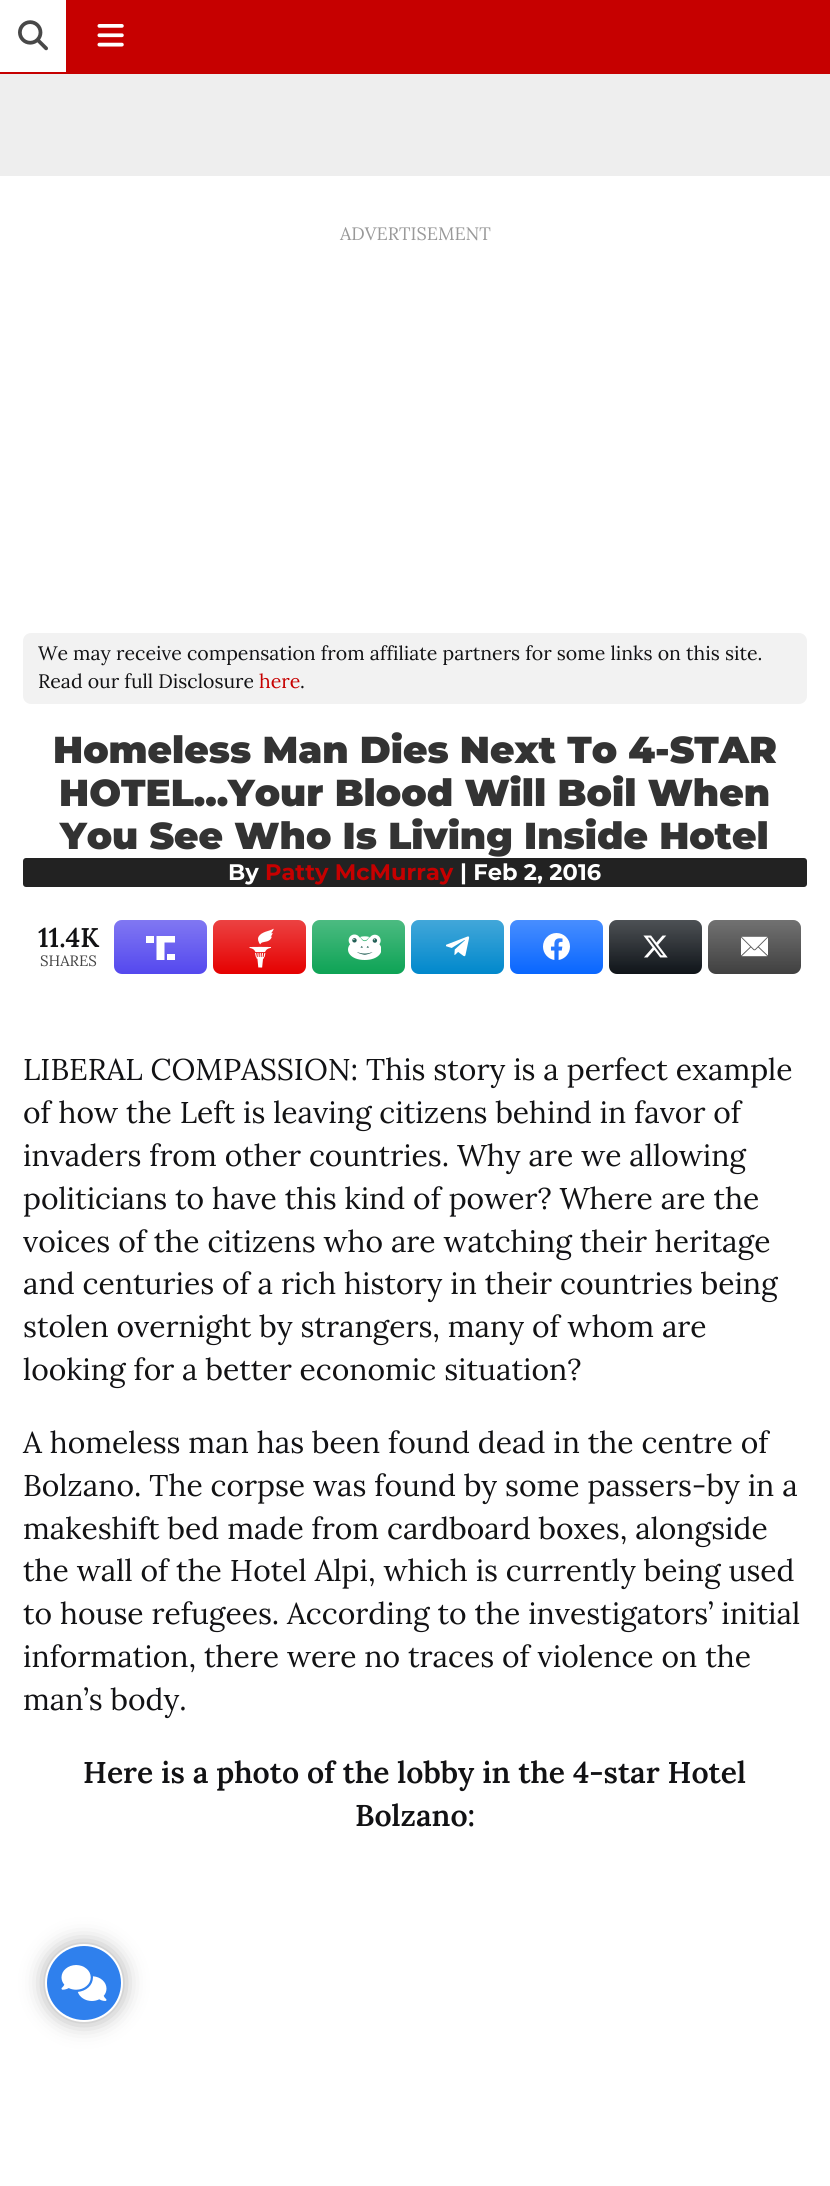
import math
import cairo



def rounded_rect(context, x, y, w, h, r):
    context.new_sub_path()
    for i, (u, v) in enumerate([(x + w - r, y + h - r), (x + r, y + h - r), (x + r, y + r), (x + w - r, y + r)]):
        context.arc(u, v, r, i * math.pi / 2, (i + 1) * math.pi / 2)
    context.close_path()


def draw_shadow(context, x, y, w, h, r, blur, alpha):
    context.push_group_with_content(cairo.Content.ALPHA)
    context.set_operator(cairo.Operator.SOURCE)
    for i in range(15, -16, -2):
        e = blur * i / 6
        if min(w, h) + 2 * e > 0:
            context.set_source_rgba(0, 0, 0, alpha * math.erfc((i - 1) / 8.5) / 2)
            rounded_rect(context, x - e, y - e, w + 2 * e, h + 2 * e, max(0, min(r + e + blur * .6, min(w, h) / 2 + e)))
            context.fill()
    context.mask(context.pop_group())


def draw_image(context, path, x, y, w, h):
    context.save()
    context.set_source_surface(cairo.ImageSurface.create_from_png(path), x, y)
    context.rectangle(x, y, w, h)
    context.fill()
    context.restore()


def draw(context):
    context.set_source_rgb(1, 1, 1)
    context.paint()
    context.set_source_rgb(198 / 255, 0, 0)
    context.rectangle(0, 0, 830, 74)
    context.fill()
    context.set_source_rgb(1, 1, 1)
    context.rectangle(0, 0, 66, 72)
    context.fill()
    draw_image(context, "images/1.png", 18, 20, 30, 31)
    draw_image(context, "images/2.png", 97, 24, 27, 23)
    context.set_source_rgb(238 / 255, 238 / 255, 238 / 255)
    context.rectangle(0, 74, 830, 102)
    context.fill()
    context.set_source_rgb(242 / 255, 242 / 255, 242 / 255)
    rounded_rect(context, 23, 633, 784, 71, 8)
    context.fill()
    context.set_source_rgb(34 / 255, 34 / 255, 34 / 255)
    rounded_rect(context, 23, 858, 784, 29, 3)
    context.fill()
    context.set_source_rgb(84 / 255, 72 / 255, 238 / 255)
    rounded_rect(context, 114, 920, 93, 54, 8)
    context.fill()
    gradient = cairo.LinearGradient(161, 974, 161, 920)
    gradient.add_color_stop_rgba(0, 1, 1, 1, 0)
    gradient.add_color_stop_rgba(1, 1, 1, 1, 0.26)
    context.set_source(gradient)
    rounded_rect(context, 114, 920, 93, 54, 8)
    context.fill()
    context.set_source_rgb(1, 1, 1)
    context.new_path()
    context.move_to(175, 942.5)
    context.line_to(175, 936)
    context.line_to(156.5, 936)
    context.line_to(156.5, 960)
    context.line_to(164.5, 960)
    context.line_to(164.5, 942.5)
    context.close_path()
    context.fill()
    context.rectangle(146, 936, 8, 7)
    context.fill()
    context.rectangle(167, 954, 8, 6)
    context.fill()
    context.set_source_rgb(229 / 255, 0, 0)
    rounded_rect(context, 213, 920, 93, 54, 8)
    context.fill()
    gradient = cairo.LinearGradient(260, 974, 260, 920)
    gradient.add_color_stop_rgba(0, 1, 1, 1, 0)
    gradient.add_color_stop_rgba(1, 1, 1, 1, 0.26)
    context.set_source(gradient)
    rounded_rect(context, 213, 920, 93, 54, 8)
    context.fill()
    draw_image(context, "images/3.png", 249, 928, 25, 40)
    context.set_source_rgb(13 / 255, 163 / 255, 85 / 255)
    rounded_rect(context, 312, 920, 93, 54, 8)
    context.fill()
    gradient = cairo.LinearGradient(359, 974, 359, 920)
    gradient.add_color_stop_rgba(0, 1, 1, 1, 0)
    gradient.add_color_stop_rgba(1, 1, 1, 1, 0.26)
    context.set_source(gradient)
    rounded_rect(context, 312, 920, 93, 54, 8)
    context.fill()
    draw_image(context, "images/4.png", 348, 934, 33, 26)
    context.set_source_rgb(0, 136 / 255, 204 / 255)
    rounded_rect(context, 411, 920, 93, 54, 8)
    context.fill()
    gradient = cairo.LinearGradient(458, 974, 458, 920)
    gradient.add_color_stop_rgba(0, 1, 1, 1, 0)
    gradient.add_color_stop_rgba(1, 1, 1, 1, 0.26)
    context.set_source(gradient)
    rounded_rect(context, 411, 920, 93, 54, 8)
    context.fill()
    draw_image(context, "images/5.png", 446, 936, 24, 21)
    context.set_source_rgb(8 / 255, 102 / 255, 1)
    rounded_rect(context, 510, 920, 93, 54, 8)
    context.fill()
    gradient = cairo.LinearGradient(557, 974, 557, 920)
    gradient.add_color_stop_rgba(0, 1, 1, 1, 0)
    gradient.add_color_stop_rgba(1, 1, 1, 1, 0.26)
    context.set_source(gradient)
    rounded_rect(context, 510, 920, 93, 54, 8)
    context.fill()
    draw_image(context, "images/6.png", 543, 933, 27, 27)
    context.set_source_rgb(15 / 255, 20 / 255, 25 / 255)
    rounded_rect(context, 609, 920, 93, 54, 8)
    context.fill()
    gradient = cairo.LinearGradient(656, 974, 656, 920)
    gradient.add_color_stop_rgba(0, 1, 1, 1, 0)
    gradient.add_color_stop_rgba(1, 1, 1, 1, 0.26)
    context.set_source(gradient)
    rounded_rect(context, 609, 920, 93, 54, 8)
    context.fill()
    draw_image(context, "images/7.png", 643, 935, 25, 23)
    context.set_source_rgb(64 / 255, 64 / 255, 64 / 255)
    rounded_rect(context, 708, 920, 93, 54, 8)
    context.fill()
    gradient = cairo.LinearGradient(755, 974, 755, 920)
    gradient.add_color_stop_rgba(0, 1, 1, 1, 0)
    gradient.add_color_stop_rgba(1, 1, 1, 1, 0.26)
    context.set_source(gradient)
    rounded_rect(context, 708, 920, 93, 54, 8)
    context.fill()
    draw_image(context, "images/8.png", 741, 936, 27, 21)
    context.set_source_rgb(170 / 255, 170 / 255, 170 / 255)
    draw_shadow(context, 45, 1944, 78, 78, 39, 11, 1)
    context.set_source_rgb(47 / 255, 128 / 255, 237 / 255)
    context.arc(84, 1983, 38, 0, 2 * math.pi)
    context.fill_preserve()
    context.set_source_rgb(1, 1, 1)
    context.stroke()
    draw_image(context, "images/9.png", 61, 1965, 46, 36)
    context.select_font_face("Lora")
    context.set_font_size(18)
    context.set_source_rgb(153 / 255, 153 / 255, 153 / 255)
    context.move_to(340, 240)
    context.show_text("ADVERTISEMENT")
    context.set_font_size(19.5)
    context.set_source_rgb(18 / 255, 18 / 255, 20 / 255)
    context.move_to(38, 660)
    context.show_text("We may receive compensation from affiliate partners for some links on this site.")
    context.move_to(38, 688)
    context.show_text("Read our full Disclosure")
    context.set_source_rgb(198 / 255, 0, 0)
    context.move_to(259, 688)
    context.show_text("here")
    context.set_source_rgb(18 / 255, 18 / 255, 20 / 255)
    context.move_to(300, 688)
    context.show_text(".")
    context.select_font_face("Montserrat Black")
    context.set_font_size(37.5)
    context.set_source_rgb(51 / 255, 51 / 255, 51 / 255)
    context.move_to(53, 763)
    context.show_text("Homeless Man Dies Next To 4-STAR")
    context.move_to(59, 806)
    context.show_text("HOTEL...Your Blood Will Boil When")
    context.move_to(60, 849)
    context.show_text("You See Who Is Living Inside Hotel")
    context.select_font_face("Montserrat", cairo.FontSlant.NORMAL, cairo.FontWeight.BOLD)
    context.set_font_size(22.5)
    context.set_source_rgb(1, 1, 1)
    context.move_to(228, 880)
    context.show_text("By")
    context.set_source_rgb(198 / 255, 0, 0)
    context.move_to(265, 880)
    context.show_text("Patty McMurray")
    context.set_source_rgb(1, 1, 1)
    context.move_to(460, 880)
    context.show_text("| Feb 2, 2016")
    context.select_font_face("Lora SemiBold")
    context.set_font_size(27)
    context.set_source_rgb(18 / 255, 18 / 255, 20 / 255)
    context.move_to(38, 947)
    context.show_text("11.4K")
    context.select_font_face("Lora")
    context.set_font_size(15)
    context.set_source_rgb(68 / 255, 68 / 255, 68 / 255)
    context.move_to(40, 966)
    context.show_text("SHARES")
    context.set_font_size(30)
    context.set_source_rgb(18 / 255, 18 / 255, 20 / 255)
    context.move_to(23, 1080)
    context.show_text("LIBERAL COMPASSION: This story is a perfect example")
    context.move_to(23, 1123)
    context.show_text("of how the Left is leaving citizens behind in favor of")
    context.move_to(23, 1166)
    context.show_text("invaders from other countries. Why are we allowing")
    context.move_to(23, 1209)
    context.show_text("politicians to have this kind of power? Where are the")
    context.move_to(23, 1252)
    context.show_text("voices of the citizens who are watching their heritage")
    context.move_to(23, 1294)
    context.show_text("and centuries of a rich history in their countries being")
    context.move_to(23, 1337)
    context.show_text("stolen overnight by strangers, many of whom are")
    context.move_to(23, 1380)
    context.show_text("looking for a better economic situation?")
    context.move_to(23, 1453)
    context.show_text("A homeless man has been found dead in the centre of")
    context.move_to(23, 1496)
    context.show_text("Bolzano. The corpse was found by some passers-by in a")
    context.move_to(23, 1539)
    context.show_text("makeshift bed made from cardboard boxes, alongside")
    context.move_to(23, 1581)
    context.show_text("the wall of the Hotel Alpi, which is currently being used")
    context.move_to(23, 1624)
    context.show_text("to house refugees. According to the investigators’ initial")
    context.move_to(23, 1667)
    context.show_text("information, there were no traces of violence on the")
    context.move_to(23, 1710)
    context.show_text("man’s body.")
    context.select_font_face("Lora SemiBold")
    context.move_to(83, 1783)
    context.show_text("Here is a photo of the lobby in the 4-star Hotel")
    context.move_to(355, 1826)
    context.show_text("Bolzano:")


surface = cairo.ImageSurface(cairo.Format.RGB24, 830, 2186)
context = cairo.Context(surface)
options = cairo.FontOptions()
options.set_hint_metrics(cairo.HintMetrics.OFF)
options.set_hint_style(cairo.HintStyle.NONE)
context.set_font_options(options)
context.set_miter_limit(4)
draw(context)
surface.write_to_png("out.png")
